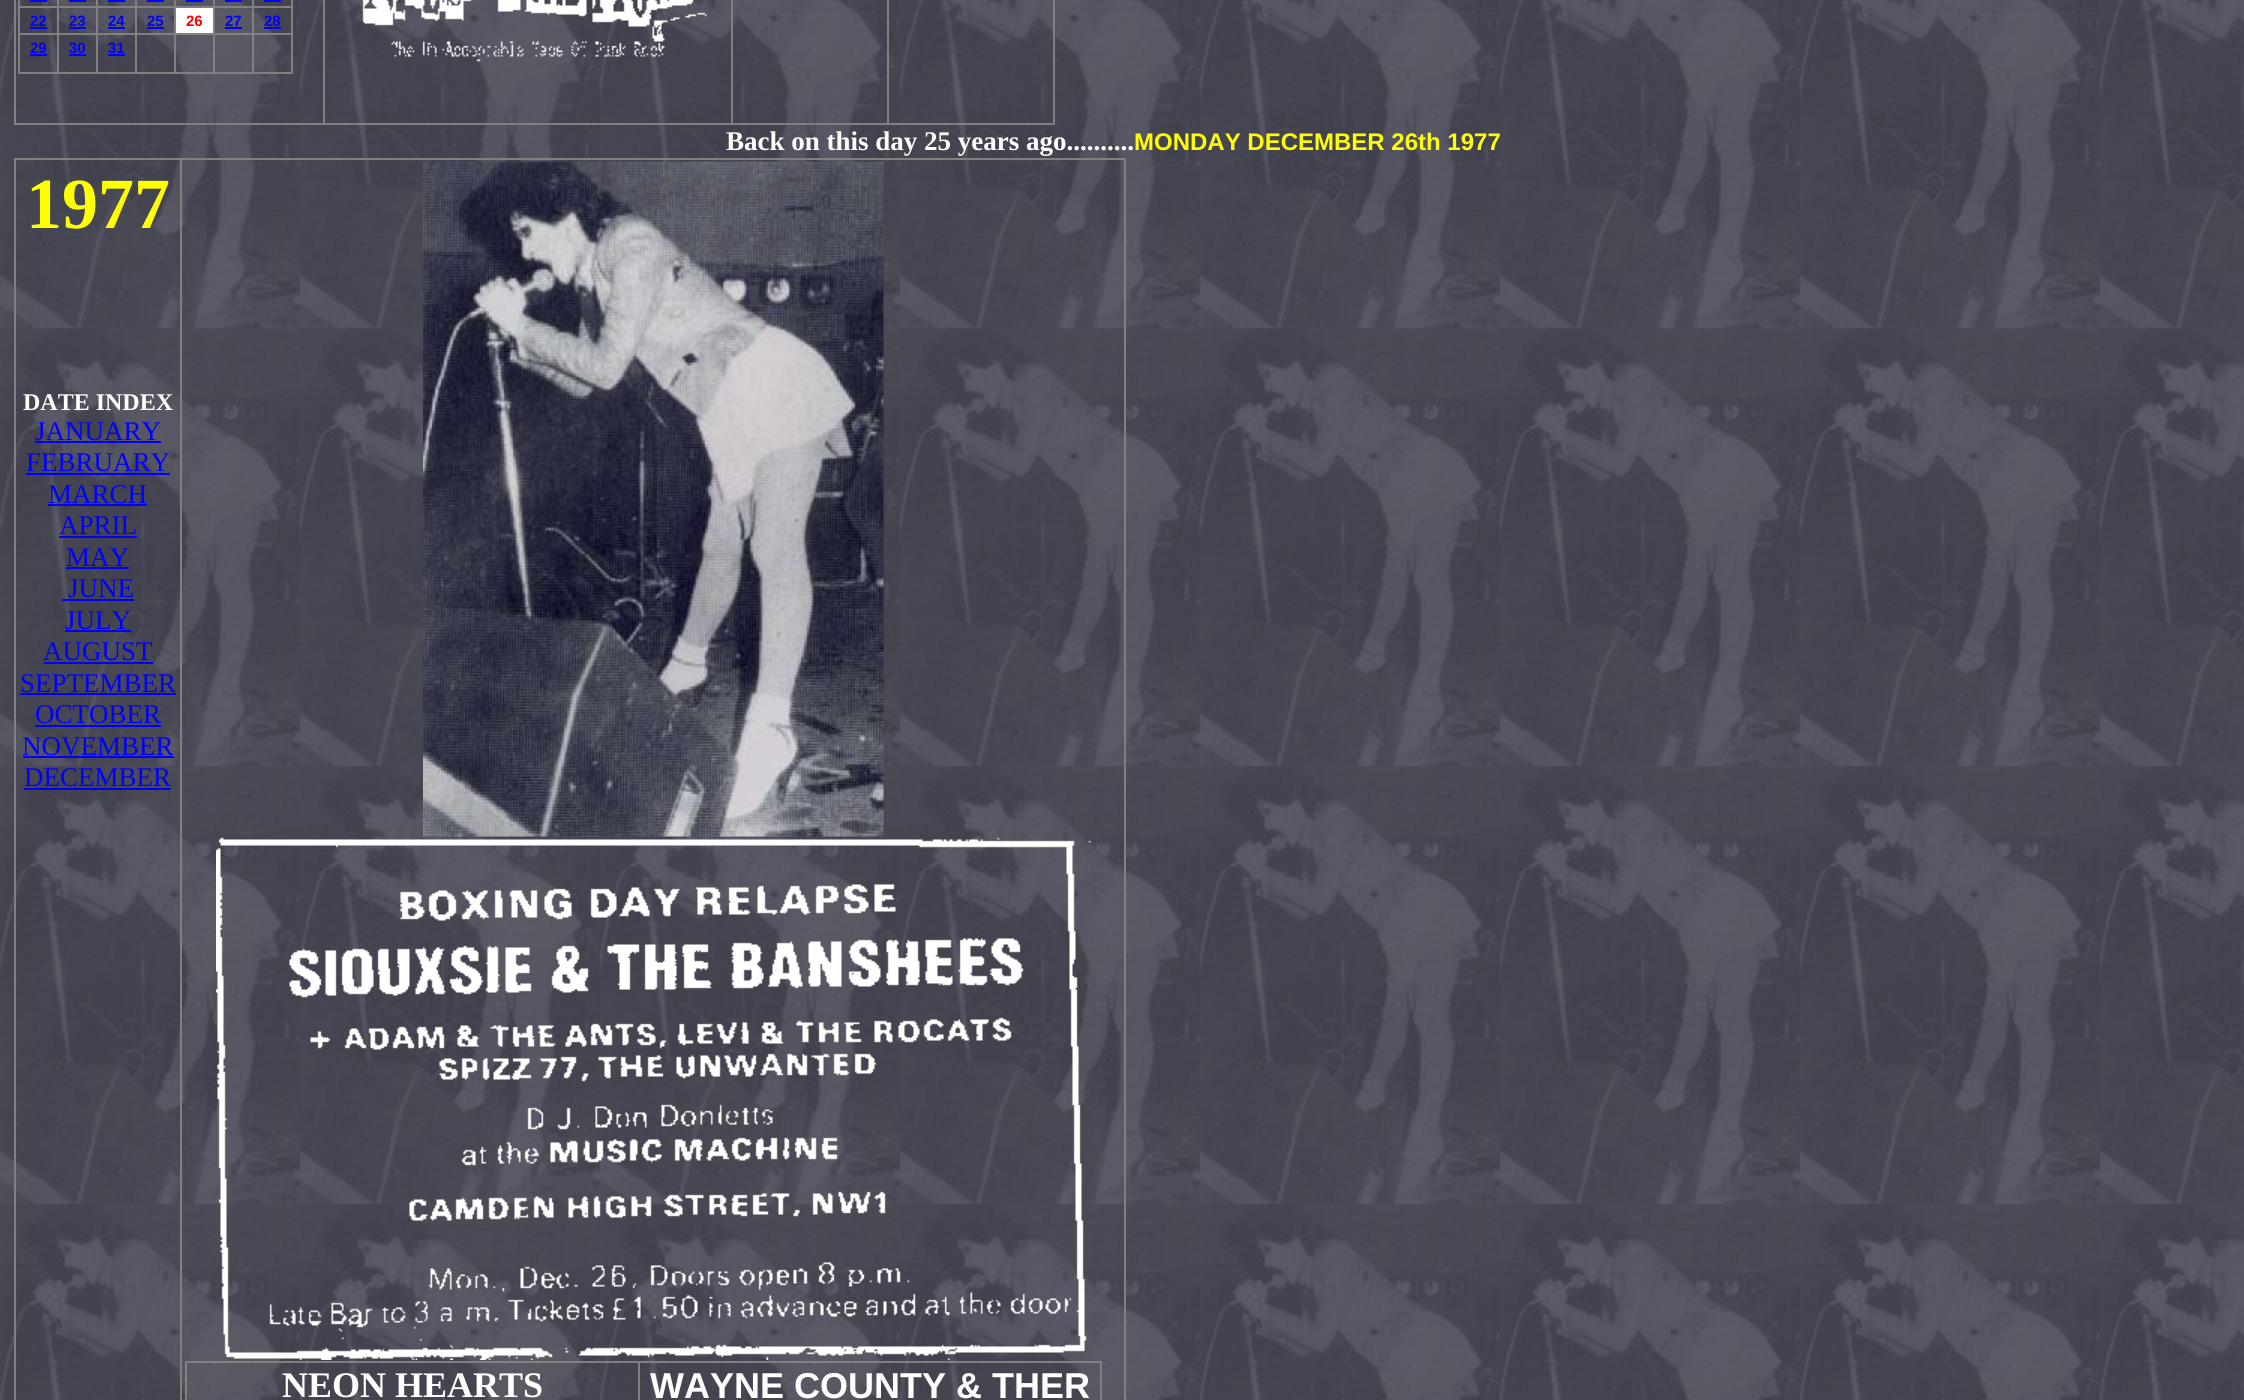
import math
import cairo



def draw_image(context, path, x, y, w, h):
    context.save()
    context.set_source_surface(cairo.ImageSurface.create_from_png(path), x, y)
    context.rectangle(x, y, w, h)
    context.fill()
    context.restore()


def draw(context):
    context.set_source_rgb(1, 1, 1)
    context.paint()
    draw_image(context, "images/1.png", 0, 0, 2244, 1400)
    context.set_source_rgb(128 / 255, 128 / 255, 128 / 255)
    context.rectangle(1053, 0, 2, 125)
    context.fill()
    context.rectangle(14, 123, 1041, 2)
    context.fill()
    context.rectangle(14, 0, 2, 125)
    context.fill()
    context.rectangle(291, 0, 2, 74)
    context.fill()
    context.rectangle(18, 72, 275, 2)
    context.fill()
    context.rectangle(18, 0, 2, 74)
    context.fill()
    context.set_source_rgb(0, 0, 1)
    context.rectangle(30, 0, 17, 2)
    context.fill()
    context.set_source_rgb(128 / 255, 128 / 255, 128 / 255)
    context.rectangle(252, 6, 41, 2)
    context.fill()
    context.rectangle(252, 33, 41, 2)
    context.fill()
    context.rectangle(252, 33, 2, 41)
    context.fill()
    context.rectangle(213, 33, 41, 2)
    context.fill()
    context.rectangle(252, 6, 2, 29)
    context.fill()
    context.rectangle(213, 6, 41, 2)
    context.fill()
    context.rectangle(213, 33, 2, 41)
    context.fill()
    context.rectangle(174, 33, 41, 2)
    context.fill()
    context.rectangle(213, 6, 2, 29)
    context.fill()
    context.rectangle(174, 6, 41, 2)
    context.fill()
    context.rectangle(174, 33, 2, 41)
    context.fill()
    context.rectangle(135, 33, 41, 2)
    context.fill()
    context.rectangle(174, 6, 2, 29)
    context.fill()
    context.rectangle(135, 6, 41, 2)
    context.fill()
    context.rectangle(135, 33, 2, 41)
    context.fill()
    context.rectangle(96, 33, 41, 2)
    context.fill()
    context.rectangle(135, 6, 2, 29)
    context.fill()
    context.rectangle(96, 6, 41, 2)
    context.fill()
    context.rectangle(96, 33, 2, 41)
    context.fill()
    context.rectangle(57, 33, 41, 2)
    context.fill()
    context.rectangle(96, 6, 2, 29)
    context.fill()
    context.rectangle(57, 6, 41, 2)
    context.fill()
    context.rectangle(57, 33, 2, 41)
    context.fill()
    context.rectangle(18, 33, 41, 2)
    context.fill()
    context.rectangle(57, 6, 2, 29)
    context.fill()
    context.rectangle(18, 6, 41, 2)
    context.fill()
    context.rectangle(57, 0, 2, 8)
    context.fill()
    context.set_source_rgb(0, 0, 1)
    context.rectangle(69, 0, 17, 2)
    context.fill()
    context.set_source_rgb(128 / 255, 128 / 255, 128 / 255)
    context.rectangle(96, 0, 2, 8)
    context.fill()
    context.set_source_rgb(0, 0, 1)
    context.rectangle(108, 0, 17, 2)
    context.fill()
    context.set_source_rgb(128 / 255, 128 / 255, 128 / 255)
    context.rectangle(135, 0, 2, 8)
    context.fill()
    context.set_source_rgb(0, 0, 1)
    context.rectangle(147, 0, 17, 2)
    context.fill()
    context.set_source_rgb(128 / 255, 128 / 255, 128 / 255)
    context.rectangle(174, 0, 2, 8)
    context.fill()
    context.set_source_rgb(0, 0, 1)
    context.rectangle(186, 0, 17, 2)
    context.fill()
    context.set_source_rgb(128 / 255, 128 / 255, 128 / 255)
    context.rectangle(213, 0, 2, 8)
    context.fill()
    context.set_source_rgb(0, 0, 1)
    context.rectangle(225, 0, 17, 2)
    context.fill()
    context.set_source_rgb(128 / 255, 128 / 255, 128 / 255)
    context.rectangle(252, 0, 2, 8)
    context.fill()
    context.set_source_rgb(0, 0, 1)
    context.rectangle(264, 0, 17, 2)
    context.fill()
    context.rectangle(30, 27, 17, 2)
    context.fill()
    context.rectangle(69, 27, 17, 2)
    context.fill()
    context.rectangle(108, 27, 17, 2)
    context.fill()
    context.rectangle(147, 27, 17, 2)
    context.fill()
    context.set_source_rgb(1, 1, 1)
    context.rectangle(176, 8, 37, 25)
    context.fill()
    context.set_source_rgb(0, 0, 1)
    context.rectangle(225, 27, 17, 2)
    context.fill()
    context.rectangle(264, 27, 17, 2)
    context.fill()
    context.rectangle(30, 54, 17, 2)
    context.fill()
    context.rectangle(69, 54, 17, 2)
    context.fill()
    context.rectangle(108, 54, 17, 2)
    context.fill()
    context.set_source_rgb(128 / 255, 128 / 255, 128 / 255)
    context.rectangle(323, 0, 2, 125)
    context.fill()
    draw_image(context, "images/2.png", 362, 0, 345, 62)
    context.rectangle(731, 0, 2, 125)
    context.fill()
    context.rectangle(887, 0, 2, 125)
    context.fill()
    context.rectangle(14, 158, 1111, 2)
    context.fill()
    context.rectangle(1124, 158, 2, 1242)
    context.fill()
    context.rectangle(14, 158, 2, 1242)
    context.fill()
    context.set_source_rgb(0, 0, 1)
    context.rectangle(35, 441, 126, 2)
    context.fill()
    context.rectangle(26, 473, 144, 2)
    context.fill()
    context.rectangle(48, 504, 99, 2)
    context.fill()
    context.rectangle(59, 536, 78, 2)
    context.fill()
    context.rectangle(66, 567, 63, 2)
    context.fill()
    context.rectangle(62, 599, 72, 2)
    context.fill()
    context.rectangle(65, 630, 66, 2)
    context.fill()
    context.rectangle(44, 662, 109, 2)
    context.fill()
    context.rectangle(20, 693, 156, 2)
    context.fill()
    context.rectangle(35, 725, 126, 2)
    context.fill()
    context.rectangle(23, 756, 151, 2)
    context.fill()
    context.rectangle(24, 788, 147, 2)
    context.fill()
    context.set_source_rgb(128 / 255, 128 / 255, 128 / 255)
    context.rectangle(180, 158, 2, 1242)
    context.fill()
    draw_image(context, "images/3.png", 423, 161, 461, 676)
    draw_image(context, "images/4.png", 216, 837, 875, 523)
    context.rectangle(185, 1361, 916, 2)
    context.fill()
    context.rectangle(1100, 1361, 2, 39)
    context.fill()
    context.rectangle(185, 1361, 2, 39)
    context.fill()
    context.rectangle(638, 1361, 2, 39)
    context.fill()
    context.select_font_face("Liberation Sans", cairo.FontSlant.NORMAL, cairo.FontWeight.BOLD)
    context.set_font_size(15)
    context.set_source_rgb(0, 0, 1)
    context.move_to(30, 26)
    context.show_text("22")
    context.move_to(69, 26)
    context.show_text("23")
    context.move_to(108, 26)
    context.show_text("24")
    context.move_to(147, 26)
    context.show_text("25")
    context.set_source_rgb(1, 0, 0)
    context.move_to(186, 26)
    context.show_text("26")
    context.set_source_rgb(0, 0, 1)
    context.move_to(225, 26)
    context.show_text("27")
    context.move_to(264, 26)
    context.show_text("28")
    context.move_to(30, 53)
    context.show_text("29")
    context.move_to(69, 53)
    context.show_text("30")
    context.move_to(108, 53)
    context.show_text("31")
    context.select_font_face("Liberation Serif", cairo.FontSlant.NORMAL, cairo.FontWeight.BOLD)
    context.set_font_size(27)
    context.set_source_rgb(1, 1, 1)
    context.move_to(726, 150)
    context.show_text("Back on this day 25 years ago..........")
    context.select_font_face("Liberation Sans", cairo.FontSlant.NORMAL, cairo.FontWeight.BOLD)
    context.set_font_size(24)
    context.set_source_rgb(1, 1, 0)
    context.move_to(1134, 150)
    context.show_text("MONDAY DECEMBER 26th 1977")
    context.select_font_face("Liberation Serif", cairo.FontSlant.NORMAL, cairo.FontWeight.BOLD)
    context.set_font_size(72)
    context.move_to(26, 228)
    context.show_text("1977")
    context.set_font_size(24)
    context.set_source_rgb(1, 1, 1)
    context.move_to(23, 410)
    context.show_text("DATE INDEX")
    context.select_font_face("Liberation Serif")
    context.set_font_size(27)
    context.set_source_rgb(0, 0, 1)
    context.move_to(35, 440)
    context.show_text("JANUARY")
    context.move_to(26, 471)
    context.show_text("FEBRUARY")
    context.move_to(48, 503)
    context.show_text("MARCH")
    context.move_to(59, 534)
    context.show_text("APRIL")
    context.move_to(66, 566)
    context.show_text("MAY")
    context.move_to(68, 597)
    context.show_text("JUNE")
    context.move_to(65, 629)
    context.show_text("JULY")
    context.move_to(43, 660)
    context.show_text("AUGUST")
    context.move_to(20, 692)
    context.show_text("SEPTEMBER")
    context.move_to(35, 723)
    context.show_text("OCTOBER")
    context.move_to(22, 755)
    context.show_text("NOVEMBER")
    context.move_to(24, 786)
    context.show_text("DECEMBER")
    context.select_font_face("Liberation Serif", cairo.FontSlant.NORMAL, cairo.FontWeight.BOLD)
    context.set_font_size(36)
    context.set_source_rgb(1, 1, 1)
    context.move_to(282, 1397)
    context.show_text("NEON HEARTS")
    context.select_font_face("Liberation Sans", cairo.FontSlant.NORMAL, cairo.FontWeight.BOLD)
    context.move_to(650, 1398)
    context.show_text("WAYNE COUNTY & THER")


surface = cairo.ImageSurface(cairo.Format.RGB24, 2244, 1400)
context = cairo.Context(surface)
options = cairo.FontOptions()
options.set_hint_metrics(cairo.HintMetrics.OFF)
options.set_hint_style(cairo.HintStyle.NONE)
context.set_font_options(options)
context.set_miter_limit(4)
draw(context)
surface.write_to_png("out.png")
